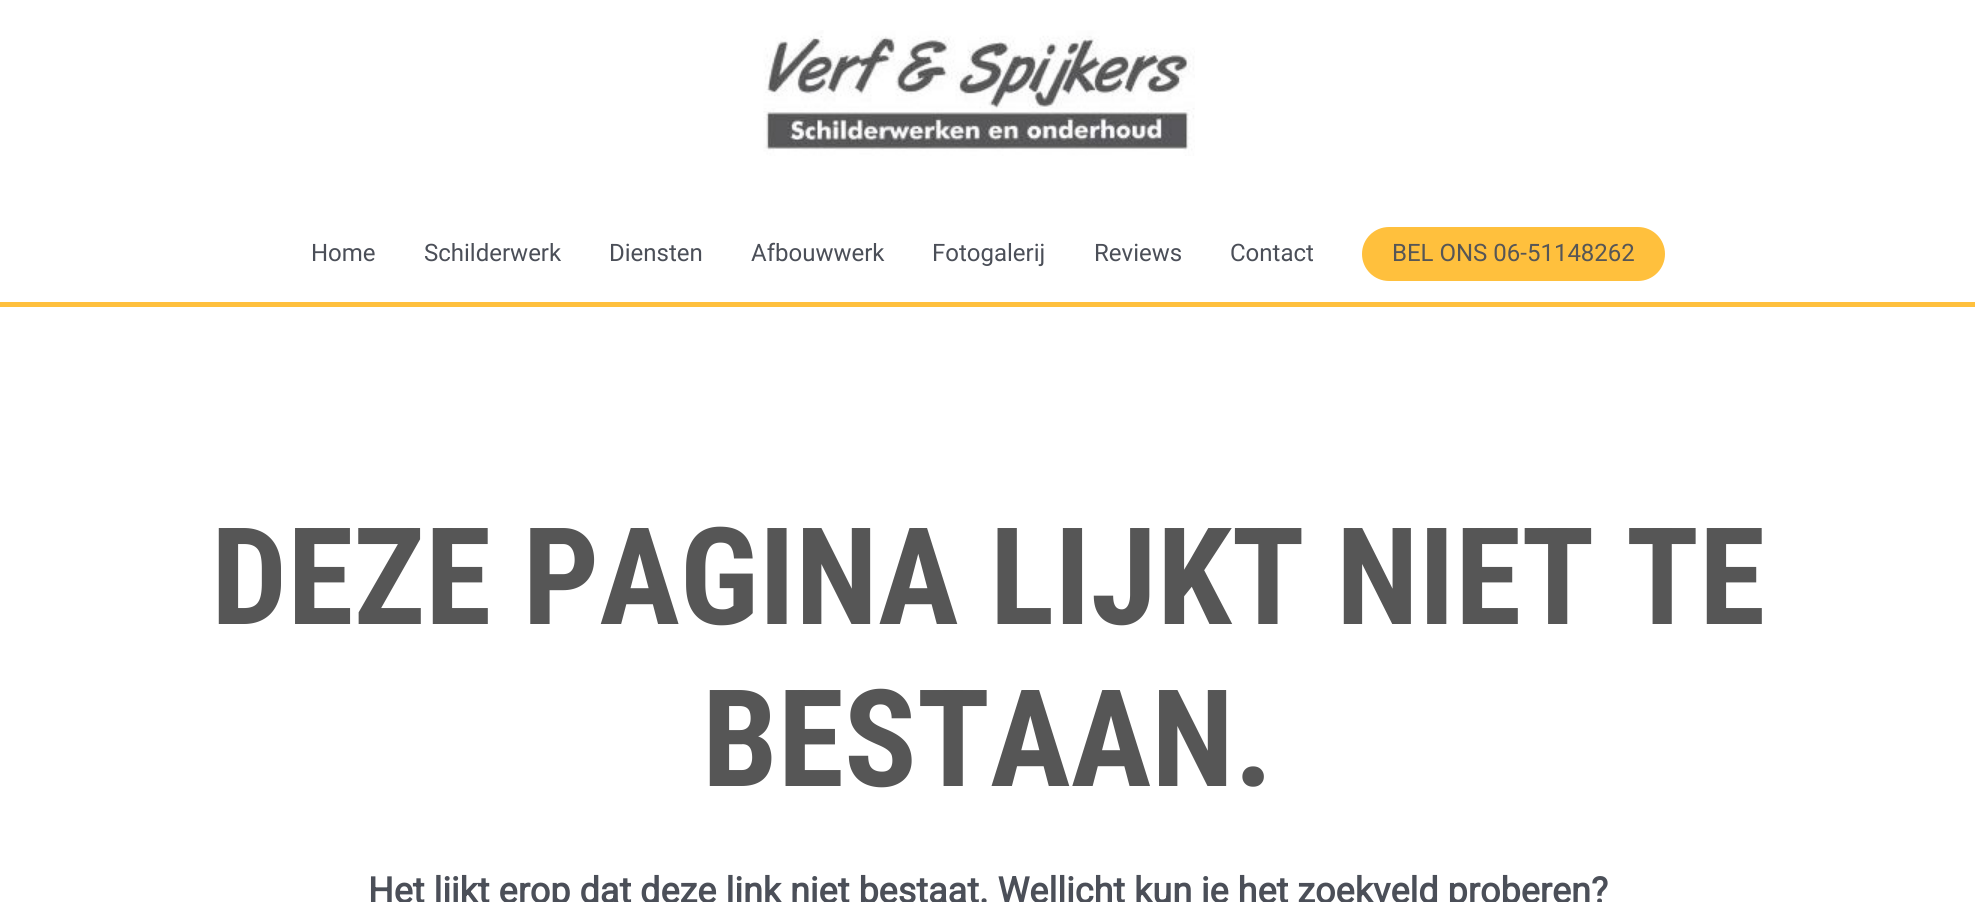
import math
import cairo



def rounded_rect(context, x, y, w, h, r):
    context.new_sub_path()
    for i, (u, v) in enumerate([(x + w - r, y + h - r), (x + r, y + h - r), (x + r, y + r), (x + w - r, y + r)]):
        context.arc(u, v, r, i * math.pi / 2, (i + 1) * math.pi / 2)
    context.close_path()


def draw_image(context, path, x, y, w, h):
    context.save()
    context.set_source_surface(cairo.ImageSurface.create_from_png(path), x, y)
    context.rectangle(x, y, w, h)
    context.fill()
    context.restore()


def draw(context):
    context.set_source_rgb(1, 1, 1)
    context.paint()
    context.set_source_rgb(1, 192 / 255, 61 / 255)
    context.rectangle(0, 302, 1975, 5)
    context.fill()
    draw_image(context, "images/1.png", 763, 30, 432, 126)
    rounded_rect(context, 1362, 227, 303, 54, 27)
    context.fill()
    context.select_font_face("Roboto")
    context.set_font_size(24)
    context.set_source_rgb(75 / 255, 79 / 255, 88 / 255)
    context.move_to(311, 261)
    context.show_text("Home")
    context.move_to(424, 261)
    context.show_text("Schilderwerk")
    context.move_to(609, 261)
    context.show_text("Diensten")
    context.move_to(751, 261)
    context.show_text("Afbouwwerk")
    context.move_to(932, 261)
    context.show_text("Fotogalerij")
    context.move_to(1094, 261)
    context.show_text("Reviews")
    context.move_to(1230, 261)
    context.show_text("Contact")
    context.set_source_rgb(86 / 255, 86 / 255, 86 / 255)
    context.move_to(1392, 261)
    context.show_text("BEL ONS 06-51148262")
    context.select_font_face("Roboto Condensed", cairo.FontSlant.NORMAL, cairo.FontWeight.BOLD)
    context.set_font_size(135)
    context.move_to(211, 624)
    context.show_text("DEZE PAGINA LIJKT NIET TE")
    context.move_to(702, 786)
    context.show_text("BESTAAN.")
    context.select_font_face("Roboto", cairo.FontSlant.NORMAL, cairo.FontWeight.BOLD)
    context.set_font_size(36)
    context.set_source_rgb(75 / 255, 79 / 255, 88 / 255)
    context.move_to(368, 903)
    context.show_text("Het lijkt erop dat deze link niet bestaat. Wellicht kun je het zoekveld proberen?")


surface = cairo.ImageSurface(cairo.Format.RGB24, 1975, 902)
context = cairo.Context(surface)
options = cairo.FontOptions()
options.set_hint_metrics(cairo.HintMetrics.OFF)
options.set_hint_style(cairo.HintStyle.NONE)
context.set_font_options(options)
context.set_miter_limit(4)
draw(context)
surface.write_to_png("out.png")
